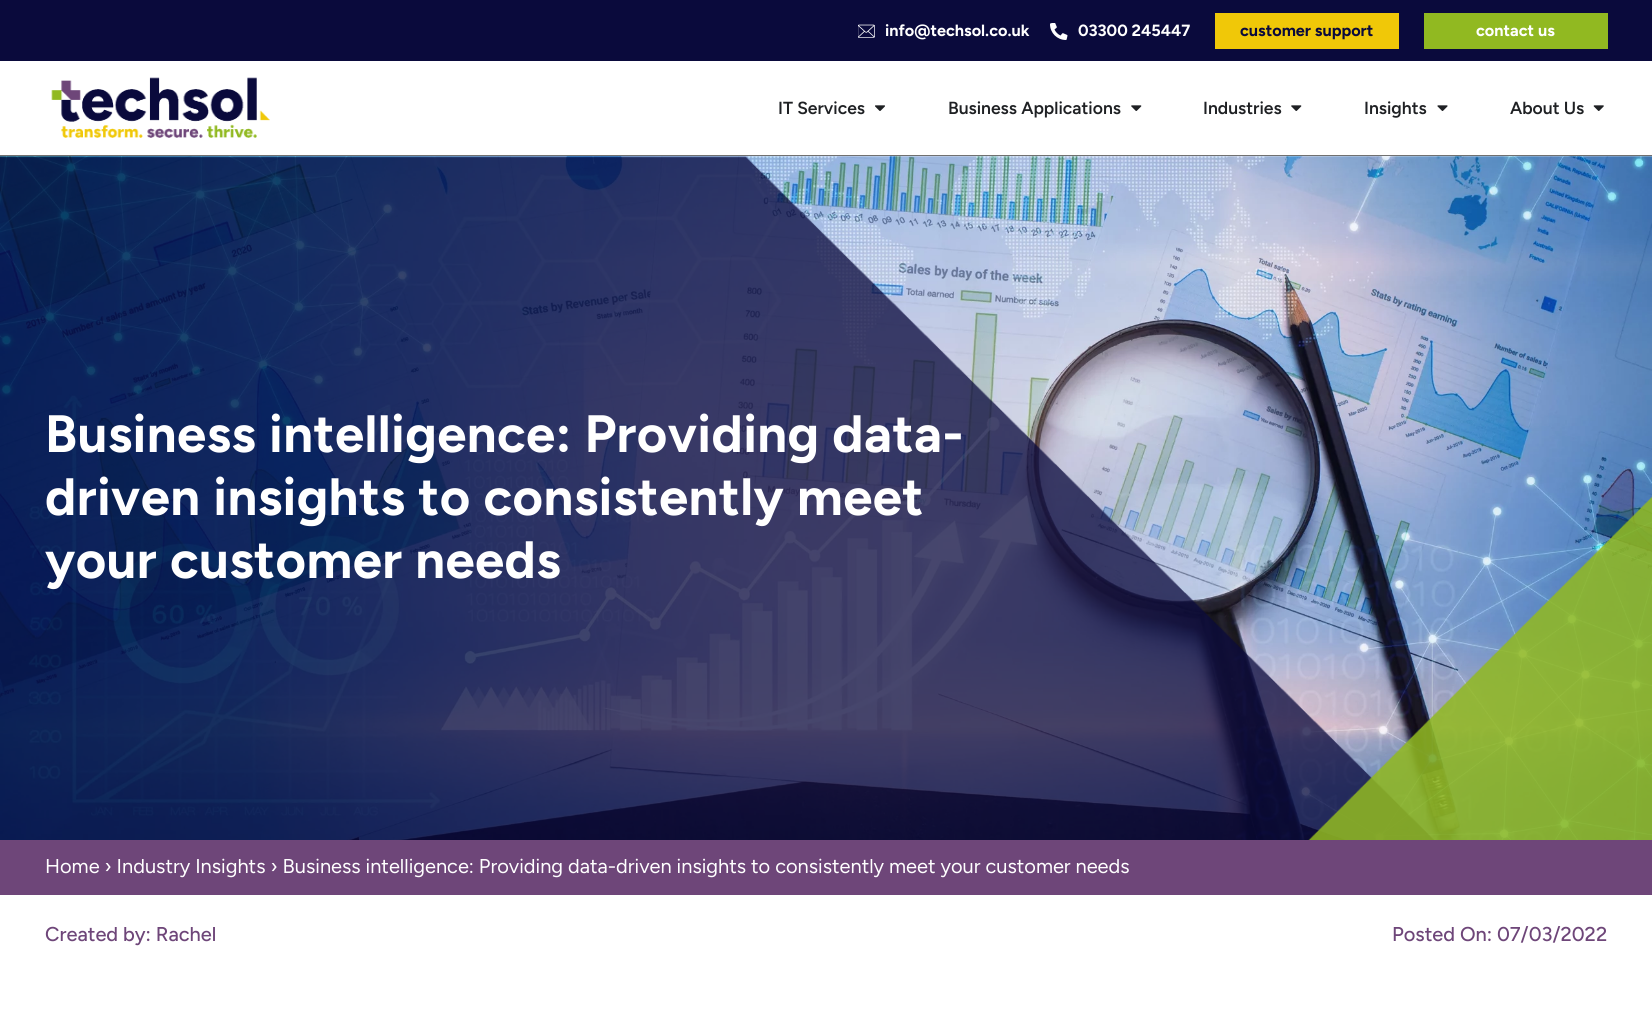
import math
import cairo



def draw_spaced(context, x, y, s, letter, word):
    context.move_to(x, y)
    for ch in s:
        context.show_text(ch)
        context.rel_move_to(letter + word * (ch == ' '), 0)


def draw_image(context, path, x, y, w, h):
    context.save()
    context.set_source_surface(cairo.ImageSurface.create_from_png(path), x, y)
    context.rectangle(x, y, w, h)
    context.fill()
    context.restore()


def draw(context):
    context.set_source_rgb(1, 1, 1)
    context.paint()
    context.set_source_rgb(10 / 255, 10 / 255, 60 / 255)
    context.rectangle(0, 0, 1652, 61)
    context.fill()
    draw_image(context, "images/1.png", 858, 24, 17, 14)
    draw_image(context, "images/2.png", 1050, 23, 18, 17)
    context.set_source_rgb(240 / 255, 200 / 255, 8 / 255)
    context.rectangle(1215, 13, 184, 36)
    context.fill()
    context.set_source_rgb(145 / 255, 185 / 255, 33 / 255)
    context.rectangle(1424, 13, 184, 36)
    context.fill()
    context.set_source_rgb(112 / 255, 112 / 255, 112 / 255)
    context.rectangle(0, 155, 1652, 1)
    context.fill()
    draw_image(context, "images/3.png", 51, 77, 219, 61)
    draw_image(context, "images/4.png", 875, 105, 10, 6)
    draw_image(context, "images/5.png", 1131, 105, 11, 6)
    draw_image(context, "images/5.png", 1291, 105, 11, 6)
    draw_image(context, "images/6.png", 1437, 105, 11, 6)
    draw_image(context, "images/7.png", 1593, 105, 11, 6)
    draw_image(context, "images/8.png", 0, 156, 1652, 684)
    draw_image(context, "images/9.png", 0, 156, 1435, 684)
    draw_image(context, "images/10.png", 1308, 496, 344, 344)
    context.set_source_rgb(110 / 255, 70 / 255, 121 / 255)
    context.rectangle(0, 840, 1652, 55)
    context.fill()
    context.select_font_face("Figtree", cairo.FontSlant.NORMAL, cairo.FontWeight.BOLD)
    context.set_font_size(16.25)
    context.set_source_rgb(1, 1, 1)
    context.move_to(885, 36)
    context.show_text("info@techsol.co.uk")
    context.move_to(1078, 36)
    context.show_text("03300 245447")
    context.set_source_rgb(10 / 255, 10 / 255, 60 / 255)
    context.move_to(1240, 36)
    context.show_text("customer support")
    context.set_source_rgb(1, 1, 1)
    context.move_to(1476, 36)
    context.show_text("contact us")
    context.select_font_face("Figtree SemiBold")
    context.set_font_size(17.5)
    context.set_source_rgb(31 / 255, 33 / 255, 36 / 255)
    context.move_to(778, 114)
    context.show_text("IT Services")
    context.move_to(948, 114)
    context.show_text("Business Applications")
    context.move_to(1203, 114)
    context.show_text("Industries")
    context.move_to(1364, 114)
    context.show_text("Insights")
    context.move_to(1510, 114)
    context.show_text("About Us")
    context.select_font_face("Figtree", cairo.FontSlant.NORMAL, cairo.FontWeight.BOLD)
    context.set_font_size(52.5)
    context.set_source_rgb(1, 1, 1)
    draw_spaced(context, 45, 452, "Business intelligence: Providing data-", 0.4, 0)
    draw_spaced(context, 45, 515, "driven insights to consistently meet", 0.4, 0)
    draw_spaced(context, 45, 578, "your customer needs", 0.4, 0)
    context.select_font_face("Figtree")
    context.set_font_size(20)
    context.move_to(45, 873)
    context.show_text("Home › Industry Insights › Business intelligence: Providing data-driven insights to consistently meet your customer needs")
    context.select_font_face("Figtree Medium")
    context.set_source_rgb(110 / 255, 70 / 255, 121 / 255)
    context.move_to(45, 941)
    context.show_text("Created by: Rachel")
    context.move_to(1392, 941)
    context.show_text("Posted On: 07/03/2022")


surface = cairo.ImageSurface(cairo.Format.RGB24, 1652, 1027)
context = cairo.Context(surface)
options = cairo.FontOptions()
options.set_hint_metrics(cairo.HintMetrics.OFF)
options.set_hint_style(cairo.HintStyle.NONE)
context.set_font_options(options)
context.set_miter_limit(4)
draw(context)
surface.write_to_png("out.png")
